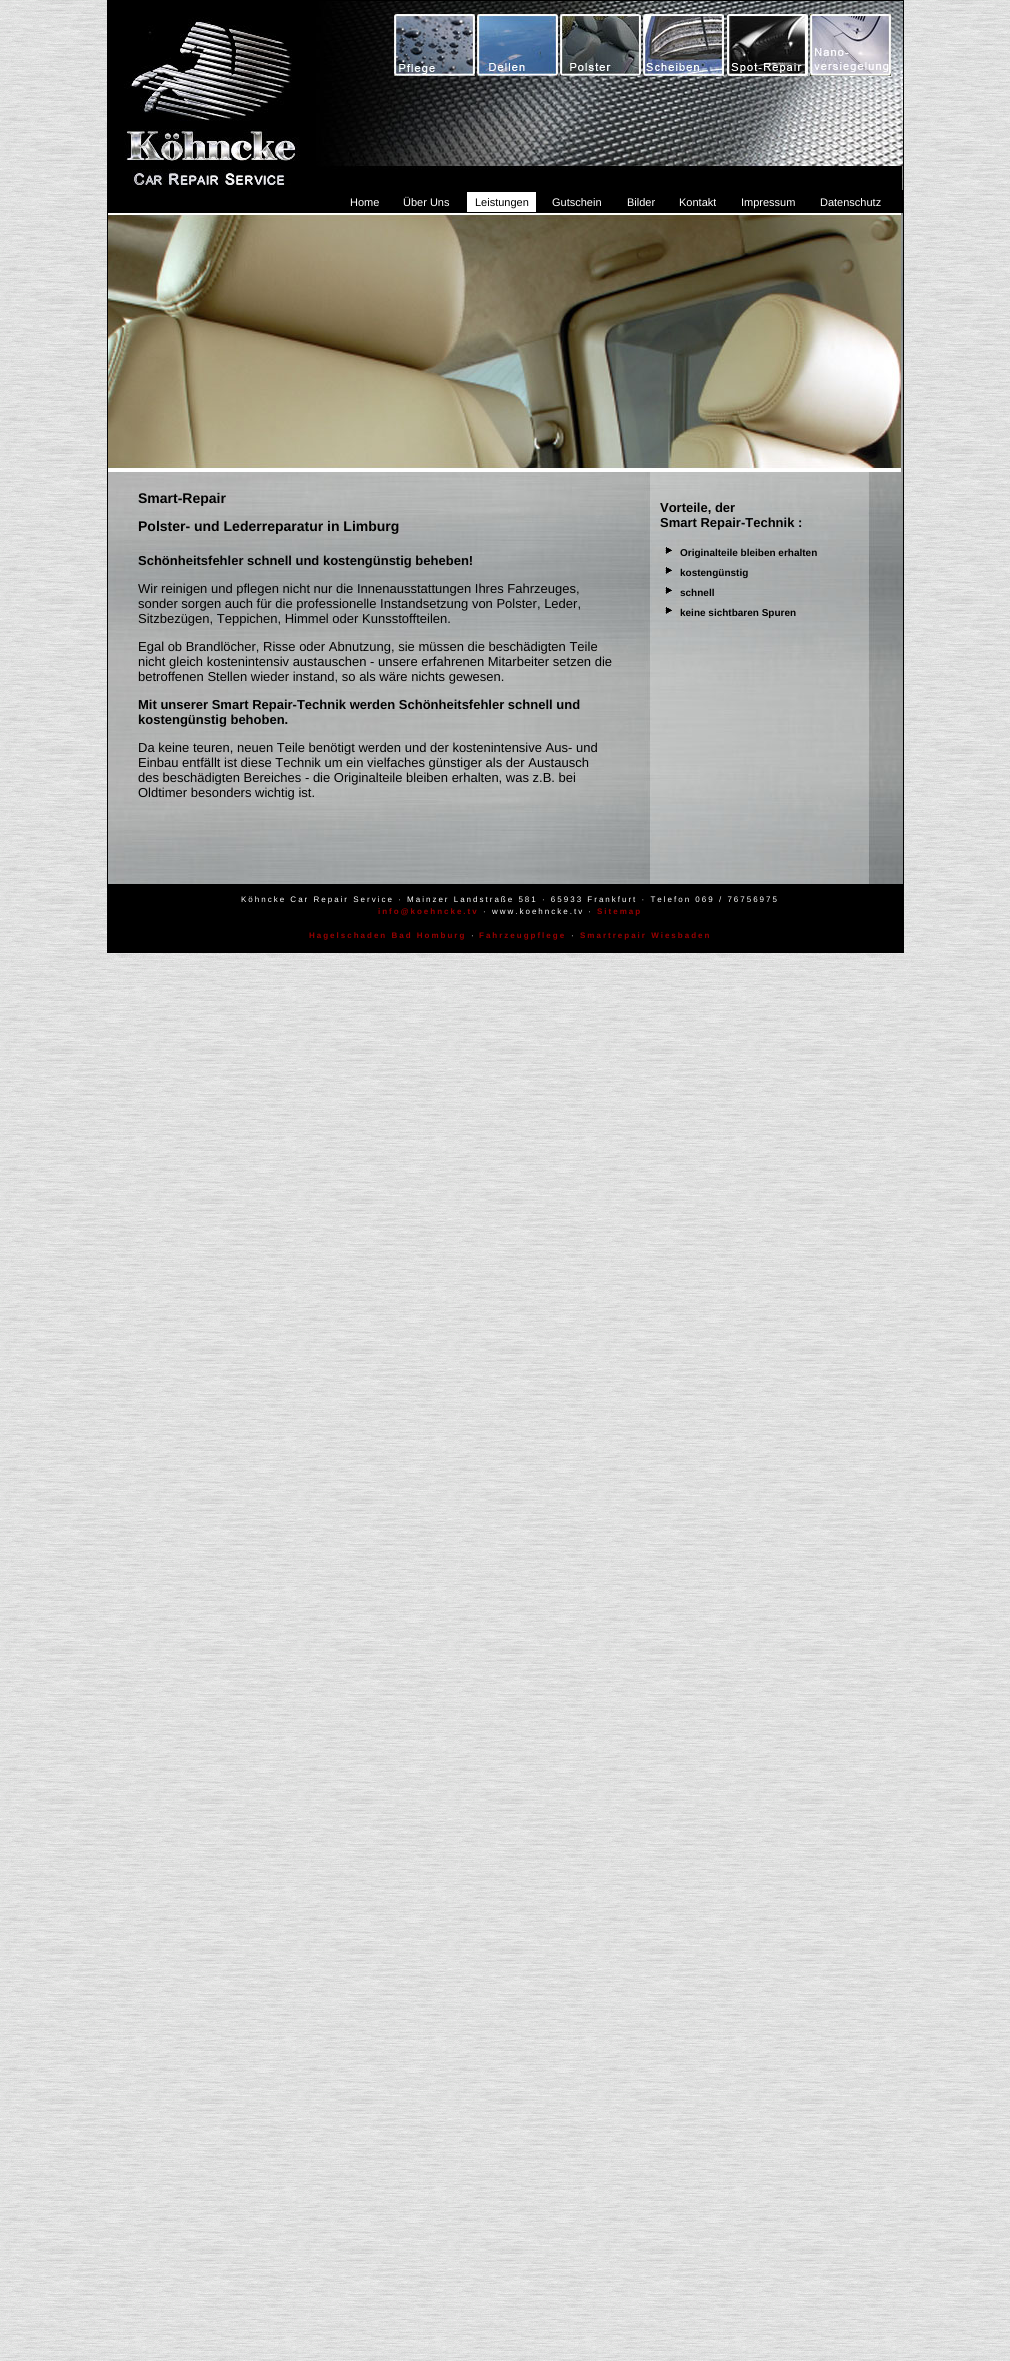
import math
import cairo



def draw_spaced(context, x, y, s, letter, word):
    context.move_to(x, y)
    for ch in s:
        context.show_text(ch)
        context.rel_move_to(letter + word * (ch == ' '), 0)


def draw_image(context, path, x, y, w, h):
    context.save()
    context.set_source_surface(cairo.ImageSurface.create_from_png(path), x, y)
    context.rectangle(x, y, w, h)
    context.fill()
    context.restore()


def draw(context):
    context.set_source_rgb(1, 1, 1)
    context.paint()
    draw_image(context, "images/1.png", 0, 0, 1010, 2361)
    draw_image(context, "images/2.png", 108, 213, 795, 671)
    context.rectangle(107.5, 0.5, 796, 952)
    context.set_source_rgb(0, 0, 0)
    context.set_line_width(1)
    context.stroke()
    context.rectangle(108, 1, 795, 212)
    context.fill()
    draw_image(context, "images/3.png", 124, 1, 779, 189)
    draw_image(context, "images/4.png", 394, 14, 81, 62)
    draw_image(context, "images/5.png", 477, 14, 81, 62)
    draw_image(context, "images/6.png", 560, 14, 81, 62)
    draw_image(context, "images/7.png", 643, 14, 81, 62)
    draw_image(context, "images/8.png", 727, 14, 81, 62)
    draw_image(context, "images/9.png", 810, 14, 81, 62)
    context.set_source_rgb(1, 1, 1)
    context.rectangle(467, 192, 69, 20)
    context.fill()
    draw_image(context, "images/10.png", 108, 213, 793, 259)
    draw_image(context, "images/11.png", 665, 546, 7, 8)
    draw_image(context, "images/12.png", 665, 566, 7, 8)
    draw_image(context, "images/13.png", 665, 586, 7, 8)
    draw_image(context, "images/14.png", 665, 606, 7, 8)
    context.set_source_rgb(0, 0, 0)
    context.rectangle(108, 884, 795, 68)
    context.fill()
    context.select_font_face("Liberation Sans")
    context.set_font_size(11)
    context.set_source_rgb(1, 1, 1)
    context.move_to(350, 206)
    context.show_text("Home")
    context.move_to(403, 206)
    context.show_text("Über Uns")
    context.set_source_rgb(0, 0, 0)
    context.move_to(475, 206)
    context.show_text("Leistungen")
    context.set_source_rgb(1, 1, 1)
    context.move_to(552, 206)
    context.show_text("Gutschein")
    context.move_to(627, 206)
    context.show_text("Bilder")
    context.move_to(679, 206)
    context.show_text("Kontakt")
    context.move_to(741, 206)
    context.show_text("Impressum")
    context.move_to(820, 206)
    context.show_text("Datenschutz")
    context.select_font_face("Liberation Sans", cairo.FontSlant.NORMAL, cairo.FontWeight.BOLD)
    context.set_font_size(14)
    context.set_source_rgb(0, 0, 0)
    context.move_to(138, 503)
    context.show_text("Smart-Repair")
    context.move_to(138, 531)
    context.show_text("Polster- und Lederreparatur in Limburg")
    context.set_font_size(13)
    context.move_to(138, 565)
    context.show_text("Schönheitsfehler schnell und kostengünstig beheben!")
    context.select_font_face("Liberation Sans")
    context.move_to(138, 593)
    context.show_text("Wir reinigen und pflegen nicht nur die Innenausstattungen Ihres Fahrzeuges,")
    context.move_to(138, 608)
    context.show_text("sonder sorgen auch für die professionelle Instandsetzung von Polster, Leder,")
    context.move_to(138, 623)
    context.show_text("Sitzbezügen, Teppichen, Himmel oder Kunsstoffteilen.")
    context.move_to(138, 651)
    context.show_text("Egal ob Brandlöcher, Risse oder Abnutzung, sie müssen die beschädigten Teile")
    context.move_to(138, 666)
    context.show_text("nicht gleich kostenintensiv austauschen - unsere erfahrenen Mitarbeiter setzen die")
    context.move_to(138, 681)
    context.show_text("betroffenen Stellen wieder instand, so als wäre nichts gewesen.")
    context.select_font_face("Liberation Sans", cairo.FontSlant.NORMAL, cairo.FontWeight.BOLD)
    context.move_to(138, 709)
    context.show_text("Mit unserer Smart Repair-Technik werden Schönheitsfehler schnell und")
    context.move_to(138, 724)
    context.show_text("kostengünstig behoben.")
    context.select_font_face("Liberation Sans")
    context.move_to(138, 752)
    context.show_text("Da keine teuren, neuen Teile benötigt werden und der kostenintensive Aus- und")
    context.move_to(138, 767)
    context.show_text("Einbau entfällt ist diese Technik um ein vielfaches günstiger als der Austausch")
    context.move_to(138, 782)
    context.show_text("des beschädigten Bereiches - die Originalteile bleiben erhalten, was z.B. bei")
    context.move_to(138, 797)
    context.show_text("Oldtimer besonders wichtig ist.")
    context.select_font_face("Liberation Sans", cairo.FontSlant.NORMAL, cairo.FontWeight.BOLD)
    context.move_to(660, 512)
    context.show_text("Vorteile, der")
    context.move_to(660, 527)
    context.show_text("Smart Repair-Technik :")
    context.set_font_size(10)
    context.move_to(680, 556)
    context.show_text("Originalteile bleiben erhalten")
    context.move_to(680, 576)
    context.show_text("kostengünstig")
    context.move_to(680, 596)
    context.show_text("schnell")
    context.move_to(680, 616)
    context.show_text("keine sichtbaren Spuren")
    context.select_font_face("Liberation Sans")
    context.set_font_size(8)
    context.set_source_rgb(1, 1, 1)
    draw_spaced(context, 241, 902, "Köhncke Car Repair Service · Mainzer Landstraße 581 · 65933 Frankfurt · Telefon 069 / 76756975", 2, 0)
    context.select_font_face("Liberation Sans", cairo.FontSlant.NORMAL, cairo.FontWeight.BOLD)
    context.set_source_rgb(153 / 255, 0, 0)
    draw_spaced(context, 378, 914, "info@koehncke.tv", 2, 0)
    context.select_font_face("Liberation Sans")
    context.set_source_rgb(1, 1, 1)
    draw_spaced(context, 483, 914, "· www.koehncke.tv ·", 2, 0)
    context.select_font_face("Liberation Sans", cairo.FontSlant.NORMAL, cairo.FontWeight.BOLD)
    context.set_source_rgb(153 / 255, 0, 0)
    draw_spaced(context, 597, 914, "Sitemap", 2, 0)
    draw_spaced(context, 309, 938, "Hagelschaden Bad Homburg", 2, 0)
    context.select_font_face("Liberation Sans")
    context.set_source_rgb(1, 1, 1)
    draw_spaced(context, 471, 938, "·", 2, 0)
    context.select_font_face("Liberation Sans", cairo.FontSlant.NORMAL, cairo.FontWeight.BOLD)
    context.set_source_rgb(153 / 255, 0, 0)
    draw_spaced(context, 479, 938, "Fahrzeugpflege", 2, 0)
    context.select_font_face("Liberation Sans")
    context.set_source_rgb(1, 1, 1)
    draw_spaced(context, 571, 938, "·", 2, 0)
    context.select_font_face("Liberation Sans", cairo.FontSlant.NORMAL, cairo.FontWeight.BOLD)
    context.set_source_rgb(153 / 255, 0, 0)
    draw_spaced(context, 580, 938, "Smartrepair Wiesbaden", 2, 0)


surface = cairo.ImageSurface(cairo.Format.RGB24, 1010, 2361)
context = cairo.Context(surface)
options = cairo.FontOptions()
options.set_hint_metrics(cairo.HintMetrics.OFF)
options.set_hint_style(cairo.HintStyle.NONE)
context.set_font_options(options)
context.set_miter_limit(4)
draw(context)
surface.write_to_png("out.png")
